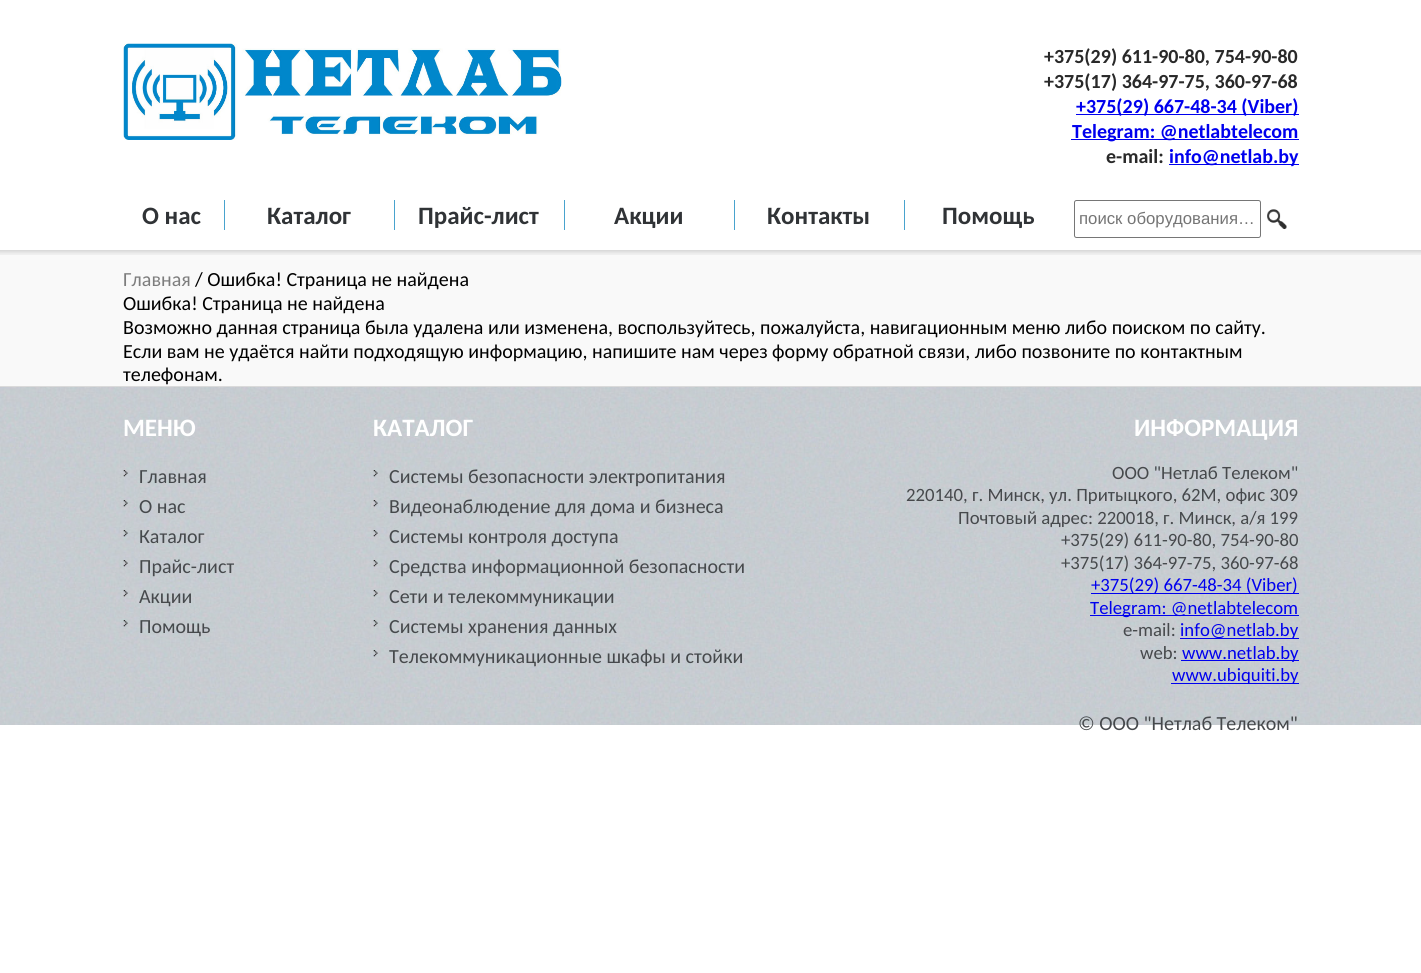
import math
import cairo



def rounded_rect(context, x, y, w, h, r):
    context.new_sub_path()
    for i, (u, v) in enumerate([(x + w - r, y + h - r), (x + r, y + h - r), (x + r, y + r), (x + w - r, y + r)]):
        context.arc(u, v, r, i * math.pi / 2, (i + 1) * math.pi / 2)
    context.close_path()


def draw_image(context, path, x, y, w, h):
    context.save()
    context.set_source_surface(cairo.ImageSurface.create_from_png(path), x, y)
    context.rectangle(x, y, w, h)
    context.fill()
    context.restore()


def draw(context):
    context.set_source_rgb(1, 1, 1)
    context.paint()
    draw_image(context, "images/1.png", 123, 43, 439, 97)
    context.set_source_rgb(0, 0, 238 / 255)
    context.rectangle(1076, 114, 223, 1)
    context.fill()
    context.rectangle(1071, 139, 228, 1)
    context.fill()
    context.rectangle(1169, 164, 130, 1)
    context.fill()
    context.set_source_rgb(73 / 255, 163 / 255, 206 / 255)
    context.rectangle(224, 200, 1, 30)
    context.fill()
    context.rectangle(394, 200, 1, 30)
    context.fill()
    context.rectangle(564, 200, 1, 30)
    context.fill()
    context.rectangle(734, 200, 1, 30)
    context.fill()
    context.rectangle(904, 200, 1, 30)
    context.fill()
    rounded_rect(context, 1074.5, 200.5, 186, 37, 2)
    context.set_source_rgb(118 / 255, 118 / 255, 118 / 255)
    context.set_line_width(1)
    context.stroke()
    draw_image(context, "images/2.png", 1267, 209, 20, 21)
    draw_image(context, "images/3.png", 0, 250, 1421, 5)
    context.set_source_rgb(249 / 255, 249 / 255, 249 / 255)
    context.rectangle(0, 255, 1421, 131)
    context.fill()
    draw_image(context, "images/4.png", 0, 387, 1421, 338)
    context.set_source_rgb(218 / 255, 218 / 255, 218 / 255)
    context.rectangle(0, 386, 1421, 1)
    context.fill()
    draw_image(context, "images/5.png", 123, 470, 5, 7)
    draw_image(context, "images/6.png", 123, 500, 5, 7)
    draw_image(context, "images/7.png", 123, 530, 5, 7)
    draw_image(context, "images/8.png", 123, 560, 5, 7)
    draw_image(context, "images/9.png", 123, 590, 5, 7)
    draw_image(context, "images/10.png", 123, 620, 5, 7)
    draw_image(context, "images/11.png", 373, 470, 5, 7)
    draw_image(context, "images/12.png", 373, 500, 5, 7)
    draw_image(context, "images/13.png", 373, 530, 5, 7)
    draw_image(context, "images/14.png", 373, 560, 5, 7)
    draw_image(context, "images/15.png", 373, 590, 5, 7)
    draw_image(context, "images/16.png", 373, 620, 5, 7)
    draw_image(context, "images/17.png", 373, 650, 5, 7)
    context.set_source_rgb(0, 0, 238 / 255)
    context.rectangle(1091, 593, 208, 1)
    context.fill()
    context.rectangle(1090, 615, 209, 1)
    context.fill()
    context.rectangle(1180, 638, 119, 1)
    context.fill()
    context.rectangle(1181, 660, 118, 1)
    context.fill()
    context.rectangle(1171, 683, 128, 1)
    context.fill()
    context.select_font_face("Carlito", cairo.FontSlant.NORMAL, cairo.FontWeight.BOLD)
    context.set_font_size(20)
    context.set_source_rgb(41 / 255, 41 / 255, 41 / 255)
    context.move_to(1044, 63)
    context.show_text("+375(29) 611-90-80, 754-90-80")
    context.move_to(1044, 88)
    context.show_text("+375(17) 364-97-75, 360-97-68")
    context.set_source_rgb(0, 0, 238 / 255)
    context.move_to(1076, 113)
    context.show_text("+375(29) 667-48-34 (Viber)")
    context.move_to(1072, 138)
    context.show_text("Telegram: @netlabtelecom")
    context.set_source_rgb(41 / 255, 41 / 255, 41 / 255)
    context.move_to(1106, 163)
    context.show_text("e-mail:")
    context.set_source_rgb(0, 0, 238 / 255)
    context.move_to(1169, 163)
    context.show_text("info@netlab.by")
    context.set_font_size(25)
    context.set_source_rgb(48 / 255, 51 / 255, 54 / 255)
    context.move_to(142, 224)
    context.show_text("О нас")
    context.move_to(267, 224)
    context.show_text("Каталог")
    context.move_to(418, 224)
    context.show_text("Прайс-лист")
    context.move_to(614, 224)
    context.show_text("Акции")
    context.move_to(767, 224)
    context.show_text("Контакты")
    context.move_to(942, 224)
    context.show_text("Помощь")
    context.select_font_face("Liberation Sans")
    context.set_font_size(16.75)
    context.set_source_rgb(117 / 255, 117 / 255, 117 / 255)
    context.move_to(1079, 224)
    context.show_text("поиск оборудования…")
    context.select_font_face("Carlito")
    context.set_font_size(20)
    context.set_source_rgb(125 / 255, 125 / 255, 125 / 255)
    context.move_to(123, 286)
    context.show_text("Главная")
    context.set_source_rgb(0, 0, 0)
    context.move_to(195, 286)
    context.show_text("/ Ошибка! Страница не найдена")
    context.move_to(123, 310)
    context.show_text("Ошибка! Страница не найдена")
    context.move_to(123, 334)
    context.show_text("Возможно данная страница была удалена или изменена, воспользуйтесь, пожалуйста, навигационным меню либо поиском по сайту.")
    context.move_to(123, 358)
    context.show_text("Если вам не удаётся найти подходящую информацию, напишите нам через форму обратной связи, либо позвоните по контактным")
    context.move_to(123, 381)
    context.show_text("телефонам.")
    context.select_font_face("Carlito", cairo.FontSlant.NORMAL, cairo.FontWeight.BOLD)
    context.set_font_size(25)
    context.set_source_rgb(1, 1, 1)
    context.move_to(123, 436)
    context.show_text("МЕНЮ")
    context.select_font_face("Carlito")
    context.set_font_size(20)
    context.set_source_rgb(70 / 255, 73 / 255, 76 / 255)
    context.move_to(139, 483)
    context.show_text("Главная")
    context.move_to(139, 513)
    context.show_text("О нас")
    context.move_to(139, 543)
    context.show_text("Каталог")
    context.move_to(139, 573)
    context.show_text("Прайс-лист")
    context.move_to(139, 603)
    context.show_text("Акции")
    context.move_to(139, 633)
    context.show_text("Помощь")
    context.select_font_face("Carlito", cairo.FontSlant.NORMAL, cairo.FontWeight.BOLD)
    context.set_font_size(25)
    context.set_source_rgb(1, 1, 1)
    context.move_to(373, 436)
    context.show_text("КАТАЛОГ")
    context.select_font_face("Carlito")
    context.set_font_size(20)
    context.set_source_rgb(70 / 255, 73 / 255, 76 / 255)
    context.move_to(389, 483)
    context.show_text("Системы безопасности электропитания")
    context.move_to(389, 513)
    context.show_text("Видеонаблюдение для дома и бизнеса")
    context.move_to(389, 543)
    context.show_text("Системы контроля доступа")
    context.move_to(389, 573)
    context.show_text("Средства информационной безопасности")
    context.move_to(389, 603)
    context.show_text("Сети и телекоммуникации")
    context.move_to(389, 633)
    context.show_text("Cистемы хранения данных")
    context.move_to(389, 663)
    context.show_text("Телекоммуникационные шкафы и стойки")
    context.select_font_face("Carlito", cairo.FontSlant.NORMAL, cairo.FontWeight.BOLD)
    context.set_font_size(25)
    context.set_source_rgb(1, 1, 1)
    context.move_to(1134, 436)
    context.show_text("ИНФОРМАЦИЯ")
    context.select_font_face("Carlito")
    context.set_font_size(18.75)
    context.set_source_rgb(70 / 255, 73 / 255, 76 / 255)
    context.move_to(1112, 479)
    context.show_text("ООО \"Нетлаб Телеком\"")
    context.move_to(906, 501)
    context.show_text("220140, г. Минск, ул. Притыцкого, 62М, офис 309")
    context.move_to(958, 524)
    context.show_text("Почтовый адрес: 220018, г. Минск, а/я 199")
    context.move_to(1061, 546)
    context.show_text("+375(29) 611-90-80, 754-90-80")
    context.move_to(1061, 569)
    context.show_text("+375(17) 364-97-75, 360-97-68")
    context.set_source_rgb(0, 0, 238 / 255)
    context.move_to(1091, 591)
    context.show_text("+375(29) 667-48-34 (Viber)")
    context.move_to(1090, 614)
    context.show_text("Telegram: @netlabtelecom")
    context.set_source_rgb(70 / 255, 73 / 255, 76 / 255)
    context.move_to(1123, 636)
    context.show_text("e-mail:")
    context.set_source_rgb(0, 0, 238 / 255)
    context.move_to(1180, 636)
    context.show_text("info@netlab.by")
    context.set_source_rgb(70 / 255, 73 / 255, 76 / 255)
    context.move_to(1140, 659)
    context.show_text("web:")
    context.set_source_rgb(0, 0, 238 / 255)
    context.move_to(1182, 659)
    context.show_text("www.netlab.by")
    context.move_to(1172, 681)
    context.show_text("www.ubiquiti.by")
    context.set_font_size(20)
    context.set_source_rgb(70 / 255, 73 / 255, 76 / 255)
    context.move_to(1078, 730)
    context.show_text("© ООО \"Нетлаб Телеком\"")


surface = cairo.ImageSurface(cairo.Format.RGB24, 1421, 973)
context = cairo.Context(surface)
options = cairo.FontOptions()
options.set_hint_metrics(cairo.HintMetrics.OFF)
options.set_hint_style(cairo.HintStyle.NONE)
context.set_font_options(options)
context.set_miter_limit(4)
draw(context)
surface.write_to_png("out.png")
